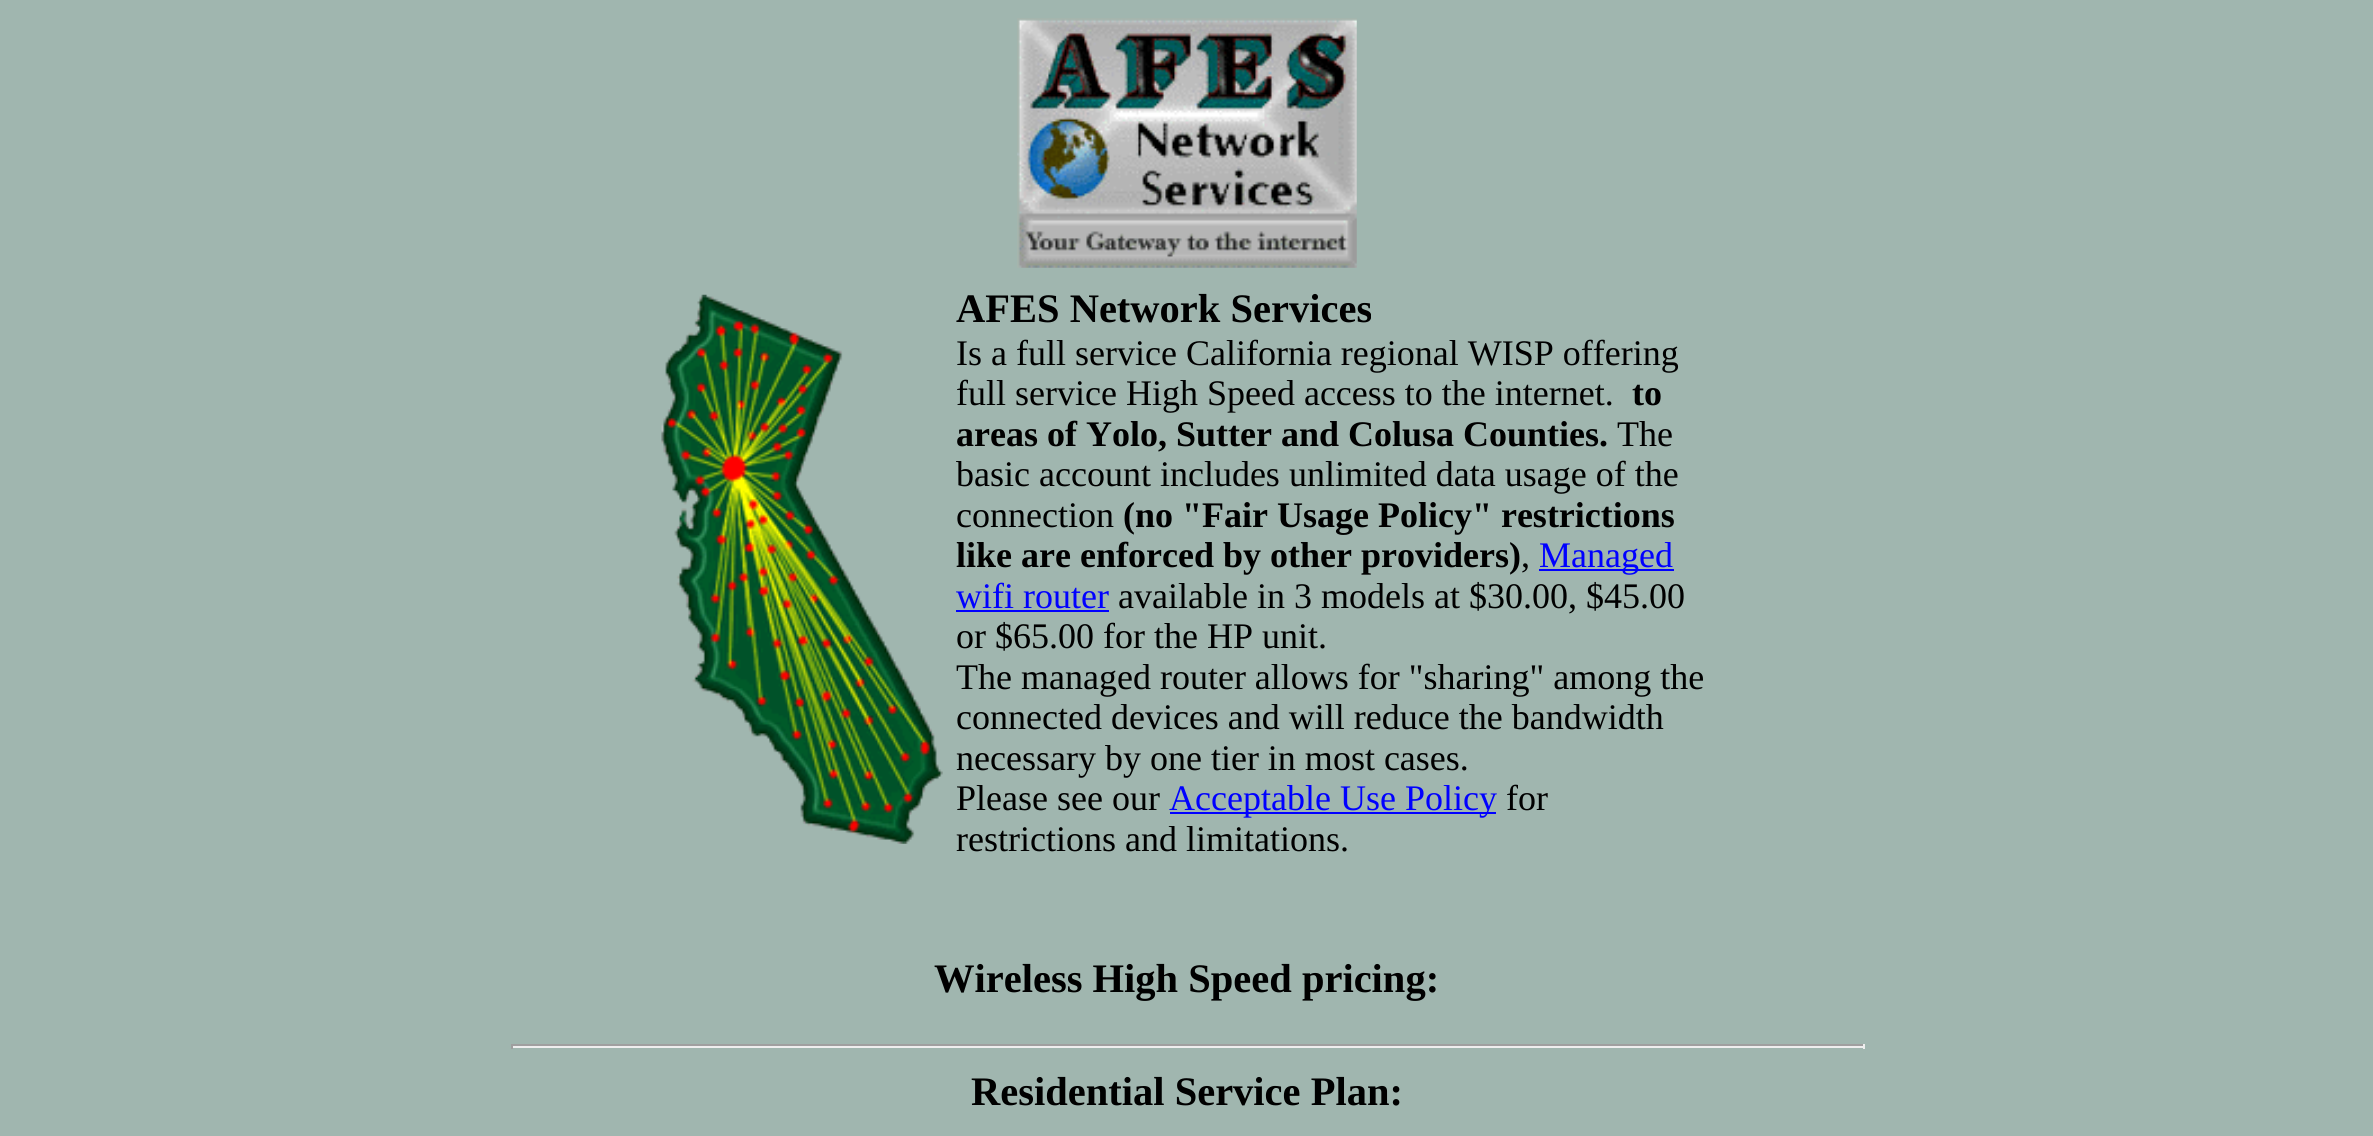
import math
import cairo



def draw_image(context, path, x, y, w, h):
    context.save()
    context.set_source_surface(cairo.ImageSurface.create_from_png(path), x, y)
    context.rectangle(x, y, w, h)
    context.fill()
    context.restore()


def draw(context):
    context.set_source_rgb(160 / 255, 182 / 255, 175 / 255)
    context.paint()
    draw_image(context, "images/1.png", 1017, 18, 340, 250)
    draw_image(context, "images/2.png", 661, 294, 282, 550)
    context.set_source_rgb(0, 0, 1)
    context.rectangle(1539, 569, 135, 2)
    context.fill()
    context.rectangle(956, 610, 153, 2)
    context.fill()
    context.rectangle(1170, 812, 326, 2)
    context.fill()
    context.set_source_rgb(159 / 255, 159 / 255, 159 / 255)
    context.rectangle(511, 1044, 1354, 2)
    context.fill()
    context.set_source_rgb(238 / 255, 238 / 255, 238 / 255)
    context.rectangle(1863, 1044, 2, 5)
    context.fill()
    context.rectangle(511, 1046, 1354, 2)
    context.fill()
    context.set_source_rgb(159 / 255, 159 / 255, 159 / 255)
    context.rectangle(511, 1044, 2, 5)
    context.fill()
    context.select_font_face("Liberation Serif", cairo.FontSlant.NORMAL, cairo.FontWeight.BOLD)
    context.set_font_size(40.5)
    context.set_source_rgb(0, 0, 0)
    context.move_to(956, 322)
    context.show_text("AFES Network Services")
    context.select_font_face("Liberation Serif")
    context.set_font_size(36)
    context.move_to(956, 365)
    context.show_text("Is a full service California regional WISP offering")
    context.move_to(956, 405)
    context.show_text("full service High Speed access to the internet.")
    context.select_font_face("Liberation Serif", cairo.FontSlant.NORMAL, cairo.FontWeight.BOLD)
    context.move_to(1632, 405)
    context.show_text("to")
    context.move_to(956, 446)
    context.show_text("areas of Yolo, Sutter and Colusa Counties.")
    context.select_font_face("Liberation Serif")
    context.move_to(1617, 446)
    context.show_text("The")
    context.move_to(956, 486)
    context.show_text("basic account includes unlimited data usage of the")
    context.move_to(956, 527)
    context.show_text("connection")
    context.select_font_face("Liberation Serif", cairo.FontSlant.NORMAL, cairo.FontWeight.BOLD)
    context.move_to(1123, 527)
    context.show_text("(no \"Fair Usage Policy\" restrictions")
    context.move_to(956, 567)
    context.show_text("like are enforced by other providers)")
    context.select_font_face("Liberation Serif")
    context.move_to(1521, 567)
    context.show_text(",")
    context.set_source_rgb(0, 0, 1)
    context.move_to(1539, 567)
    context.show_text("Managed")
    context.move_to(956, 608)
    context.show_text("wifi router")
    context.set_source_rgb(0, 0, 0)
    context.move_to(1118, 608)
    context.show_text("available in 3 models at $30.00, $45.00")
    context.move_to(956, 648)
    context.show_text("or $65.00 for the HP unit.")
    context.move_to(956, 689)
    context.show_text("The managed router allows for \"sharing\" among the")
    context.move_to(956, 729)
    context.show_text("connected devices and will reduce the bandwidth")
    context.move_to(956, 770)
    context.show_text("necessary by one tier in most cases.")
    context.move_to(956, 810)
    context.show_text("Please see our")
    context.set_source_rgb(0, 0, 1)
    context.move_to(1169, 810)
    context.show_text("Acceptable Use Policy")
    context.set_source_rgb(0, 0, 0)
    context.move_to(1506, 810)
    context.show_text("for")
    context.move_to(956, 851)
    context.show_text("restrictions and limitations.")
    context.select_font_face("Liberation Serif", cairo.FontSlant.NORMAL, cairo.FontWeight.BOLD)
    context.set_font_size(40.5)
    context.move_to(934, 992)
    context.show_text("Wireless High Speed pricing:")
    context.move_to(971, 1105)
    context.show_text("Residential Service Plan:")


surface = cairo.ImageSurface(cairo.Format.RGB24, 2373, 1136)
context = cairo.Context(surface)
options = cairo.FontOptions()
options.set_hint_metrics(cairo.HintMetrics.OFF)
options.set_hint_style(cairo.HintStyle.NONE)
context.set_font_options(options)
context.set_miter_limit(4)
draw(context)
surface.write_to_png("out.png")
